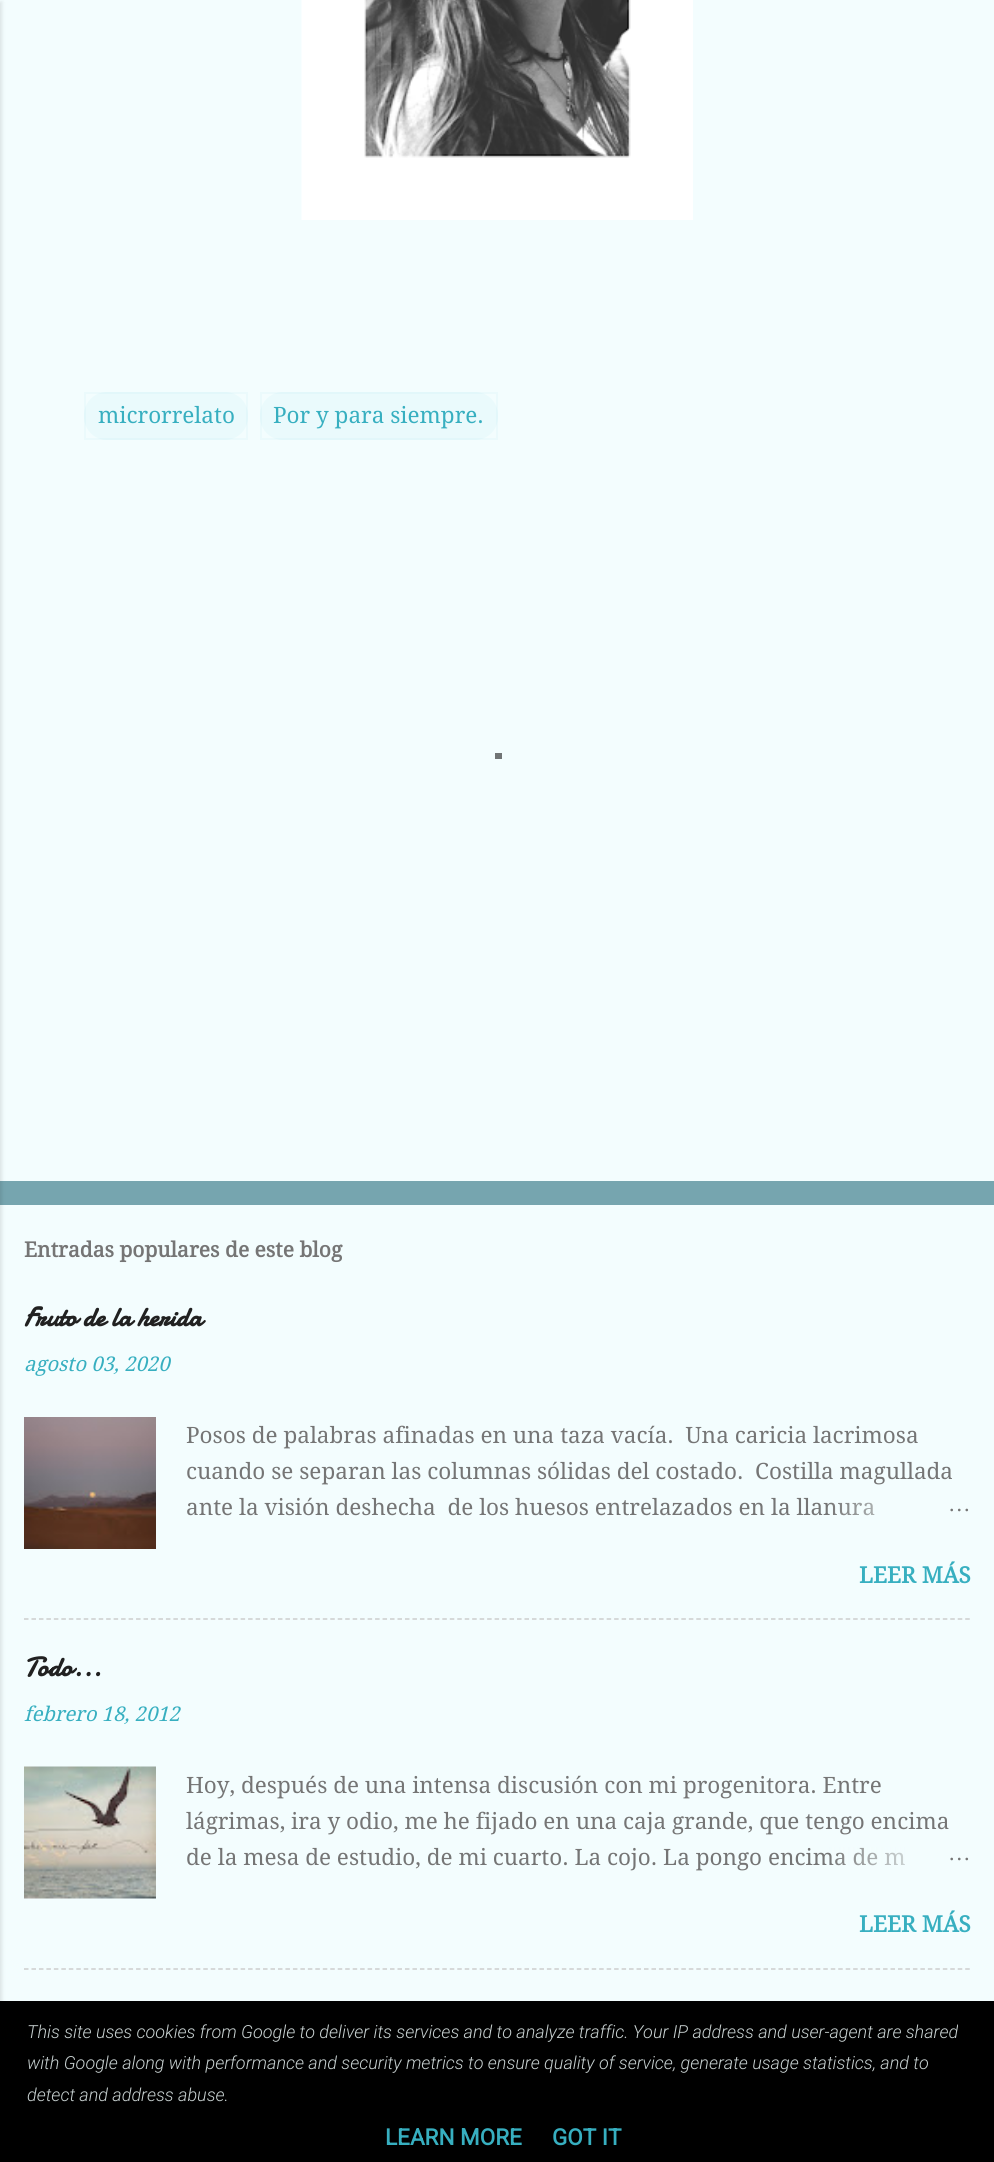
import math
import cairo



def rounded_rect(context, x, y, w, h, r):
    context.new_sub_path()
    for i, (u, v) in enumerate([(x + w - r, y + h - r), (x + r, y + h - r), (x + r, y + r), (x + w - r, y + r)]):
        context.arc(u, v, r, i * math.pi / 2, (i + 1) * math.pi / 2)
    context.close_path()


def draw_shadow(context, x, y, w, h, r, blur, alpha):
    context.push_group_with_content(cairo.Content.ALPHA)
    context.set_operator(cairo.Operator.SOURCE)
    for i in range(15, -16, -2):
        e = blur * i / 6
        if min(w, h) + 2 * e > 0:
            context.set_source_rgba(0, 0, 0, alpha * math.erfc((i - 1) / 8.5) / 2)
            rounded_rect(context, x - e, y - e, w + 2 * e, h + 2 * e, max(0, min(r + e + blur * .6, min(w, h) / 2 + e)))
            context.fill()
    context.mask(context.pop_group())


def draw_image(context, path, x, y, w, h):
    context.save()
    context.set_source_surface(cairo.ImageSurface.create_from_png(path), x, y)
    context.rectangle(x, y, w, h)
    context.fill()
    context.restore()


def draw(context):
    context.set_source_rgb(118 / 255, 165 / 255, 175 / 255)
    context.paint()
    context.set_source_rgb(243 / 255, 253 / 255, 254 / 255)
    context.rectangle(0, 0, 994, 1181)
    context.fill()
    context.rectangle(0, 1205, 994, 796)
    context.fill()
    context.set_source_rgb(0, 0, 0)
    draw_shadow(context, -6, 2, 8, 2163, 0, 2, 0.1)
    draw_image(context, "images/1.png", 301, 0, 392, 220)
    context.set_source_rgb(234 / 255, 250 / 255, 252 / 255)
    rounded_rect(context, 84, 392, 164, 48, 23)
    context.fill()
    context.rectangle(85, 393, 162, 46)
    context.set_source_rgba(62 / 255, 195 / 255, 214 / 255, 0.05)
    context.stroke()
    context.set_source_rgb(234 / 255, 250 / 255, 252 / 255)
    rounded_rect(context, 260, 392, 238, 48, 23)
    context.fill()
    context.rectangle(261, 393, 236, 46)
    context.set_source_rgba(62 / 255, 195 / 255, 214 / 255, 0.05)
    context.stroke()
    draw_image(context, "images/2.png", 24, 1417, 132, 132)
    context.new_path()
    context.move_to(24, 1619)
    context.line_to(970.5, 1619)
    context.set_source_rgb(204 / 255, 204 / 255, 204 / 255)
    context.set_line_width(1.5)
    context.set_dash([4.5, 2.97])
    context.stroke()
    draw_image(context, "images/3.png", 24, 1766, 132, 133)
    context.new_path()
    context.move_to(24, 1969)
    context.line_to(970.5, 1969)
    context.stroke()
    context.set_source_rgb(112 / 255, 116 / 255, 117 / 255)
    context.rectangle(495, 753, 7, 6)
    context.fill()
    context.set_source_rgb(0, 0, 0)
    context.rectangle(0, 2001, 994, 161)
    context.fill()
    context.select_font_face("Droid Serif")
    context.set_font_size(22.5)
    context.set_source_rgb(55 / 255, 175 / 255, 192 / 255)
    context.move_to(98, 423)
    context.show_text("microrrelato")
    context.move_to(273, 423)
    context.show_text("Por y para siempre.")
    context.select_font_face("Droid Serif", cairo.FontSlant.NORMAL, cairo.FontWeight.BOLD)
    context.set_font_size(21)
    context.set_source_rgb(117 / 255, 117 / 255, 117 / 255)
    context.move_to(24, 1257)
    context.show_text("Entradas populares de este blog")
    context.select_font_face("Damion", cairo.FontSlant.NORMAL, cairo.FontWeight.BOLD)
    context.set_font_size(27)
    context.set_source_rgb(33 / 255, 33 / 255, 33 / 255)
    context.move_to(24, 1326)
    context.show_text("Fruto de la herida")
    context.select_font_face("Droid Serif", cairo.FontSlant.ITALIC)
    context.set_font_size(20.25)
    context.set_source_rgb(55 / 255, 175 / 255, 192 / 255)
    context.move_to(24, 1371)
    context.show_text("agosto 03, 2020")
    context.select_font_face("Droid Serif")
    context.set_font_size(22.5)
    context.set_source_rgb(117 / 255, 117 / 255, 117 / 255)
    context.move_to(186, 1443)
    context.show_text("Posos de palabras afinadas en una taza vacía.  Una caricia lacrimosa")
    context.move_to(186, 1479)
    context.show_text("cuando se separan las columnas sólidas del costado.  Costilla magullada")
    context.move_to(186, 1515)
    context.show_text("ante la visión deshecha  de los huesos entrelazados en la llanura")
    gradient = cairo.LinearGradient(971, 1508, 827, 1508)
    gradient.add_color_stop_rgba(0, 243 / 255, 253 / 255, 254 / 255, 1)
    gradient.add_color_stop_rgba(0.2, 243 / 255, 253 / 255, 254 / 255, 1)
    gradient.add_color_stop_rgba(1, 243 / 255, 253 / 255, 254 / 255, 0)
    context.set_source(gradient)
    context.rectangle(829, 1502, 45, 14)
    context.fill()
    context.select_font_face("Liberation Serif")
    context.set_source_rgb(117 / 255, 117 / 255, 117 / 255)
    context.move_to(948, 1511)
    context.show_text("…")
    context.select_font_face("Droid Serif", cairo.FontSlant.NORMAL, cairo.FontWeight.BOLD)
    context.set_source_rgb(55 / 255, 175 / 255, 192 / 255)
    context.move_to(859, 1583)
    context.show_text("LEER MÁS")
    context.select_font_face("Damion", cairo.FontSlant.NORMAL, cairo.FontWeight.BOLD)
    context.set_font_size(27)
    context.set_source_rgb(33 / 255, 33 / 255, 33 / 255)
    context.move_to(24, 1676)
    context.show_text("Todo...")
    context.select_font_face("Droid Serif", cairo.FontSlant.ITALIC)
    context.set_font_size(20.25)
    context.set_source_rgb(55 / 255, 175 / 255, 192 / 255)
    context.move_to(24, 1721)
    context.show_text("febrero 18, 2012")
    context.select_font_face("Droid Serif")
    context.set_font_size(22.5)
    context.set_source_rgb(117 / 255, 117 / 255, 117 / 255)
    context.move_to(186, 1793)
    context.show_text("Hoy, después de una intensa discusión con mi progenitora. Entre")
    context.move_to(186, 1829)
    context.show_text("lágrimas, ira y odio, me he fijado en una caja grande, que tengo encima")
    context.move_to(186, 1865)
    context.show_text("de la mesa de estudio, de mi cuarto. La cojo. La pongo encima de m")
    gradient = cairo.LinearGradient(971, 1857, 827, 1857)
    gradient.add_color_stop_rgba(0, 243 / 255, 253 / 255, 254 / 255, 1)
    gradient.add_color_stop_rgba(0.2, 243 / 255, 253 / 255, 254 / 255, 1)
    gradient.add_color_stop_rgba(1, 243 / 255, 253 / 255, 254 / 255, 0)
    context.set_source(gradient)
    context.rectangle(829, 1847, 76, 19)
    context.fill()
    context.select_font_face("Liberation Serif")
    context.set_source_rgb(117 / 255, 117 / 255, 117 / 255)
    context.move_to(948, 1860)
    context.show_text("…")
    context.select_font_face("Droid Serif", cairo.FontSlant.NORMAL, cairo.FontWeight.BOLD)
    context.set_source_rgb(55 / 255, 175 / 255, 192 / 255)
    context.move_to(859, 1932)
    context.show_text("LEER MÁS")
    context.select_font_face("Roboto Light", cairo.FontSlant.ITALIC)
    context.set_font_size(18)
    context.set_source_rgb(199 / 255, 208 / 255, 208 / 255)
    context.move_to(27, 2038)
    context.show_text("This site uses cookies from Google to deliver its services and to analyze traffic. Your IP address and user-agent are shared")
    context.move_to(27, 2069)
    context.show_text("with Google along with performance and security metrics to ensure quality of service, generate usage statistics, and to")
    context.move_to(27, 2101)
    context.show_text("detect and address abuse.")
    context.select_font_face("Roboto", cairo.FontSlant.NORMAL, cairo.FontWeight.BOLD)
    context.set_font_size(22.5)
    context.set_source_rgb(55 / 255, 175 / 255, 192 / 255)
    context.move_to(385, 2145)
    context.show_text("LEARN MORE")
    context.move_to(552, 2145)
    context.show_text("GOT IT")


surface = cairo.ImageSurface(cairo.Format.RGB24, 994, 2162)
context = cairo.Context(surface)
options = cairo.FontOptions()
options.set_hint_metrics(cairo.HintMetrics.OFF)
options.set_hint_style(cairo.HintStyle.NONE)
context.set_font_options(options)
context.set_miter_limit(4)
draw(context)
surface.write_to_png("out.png")
